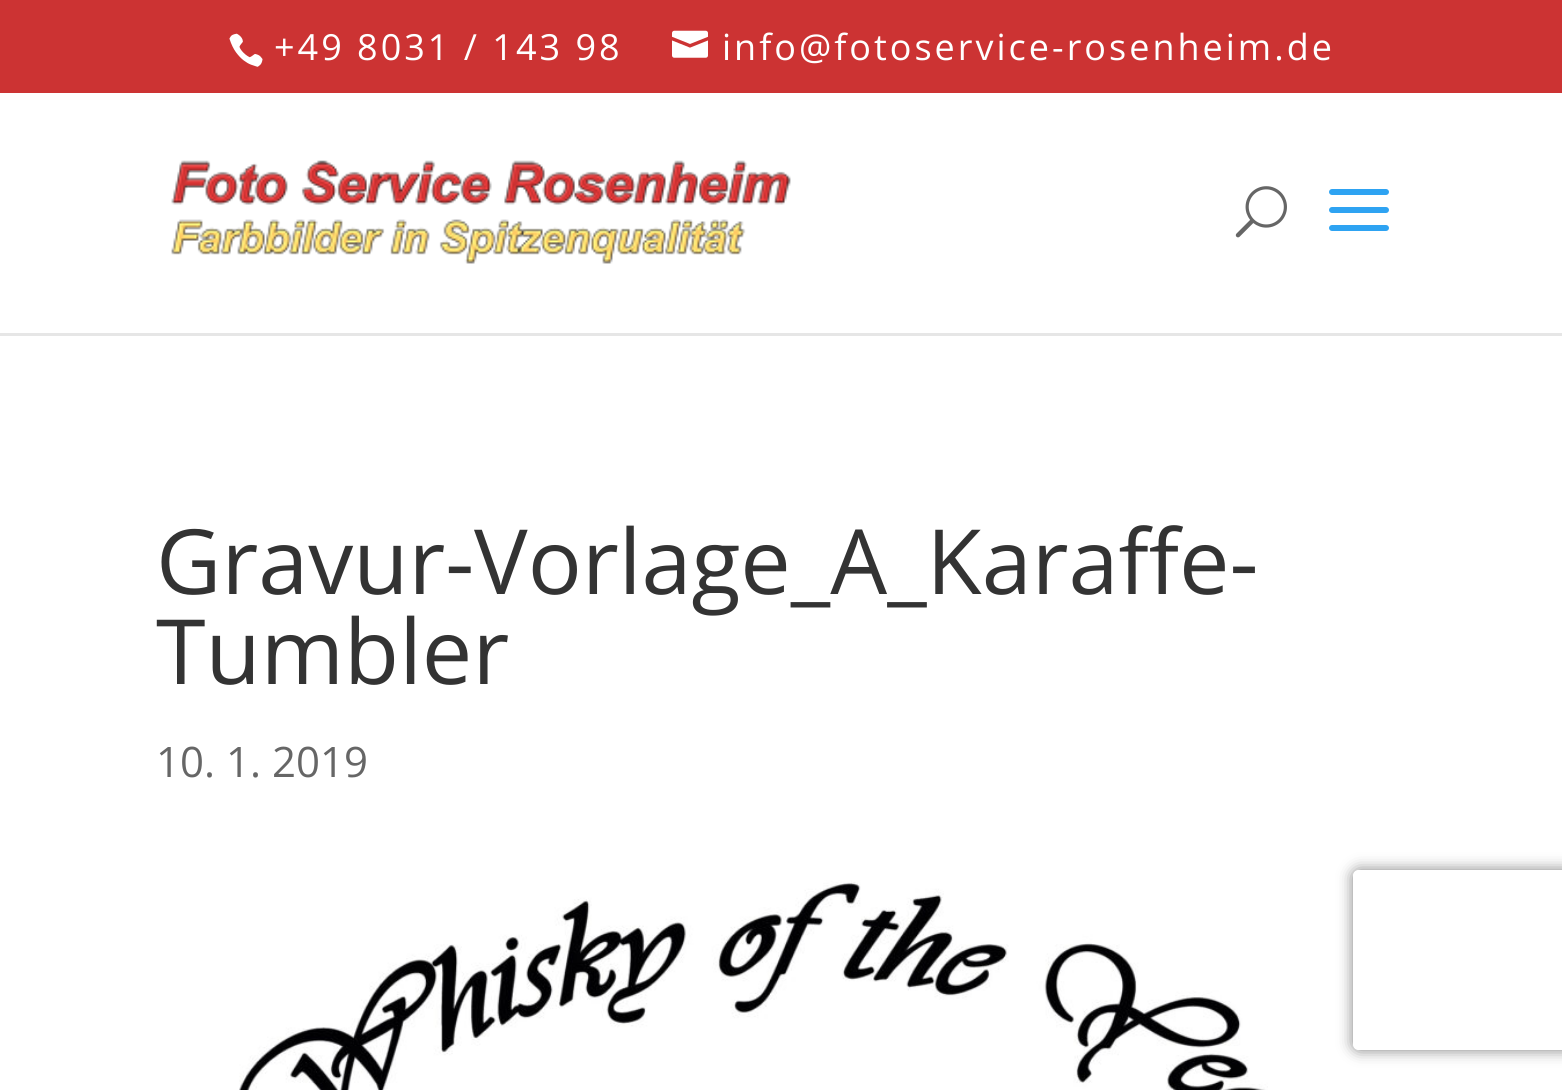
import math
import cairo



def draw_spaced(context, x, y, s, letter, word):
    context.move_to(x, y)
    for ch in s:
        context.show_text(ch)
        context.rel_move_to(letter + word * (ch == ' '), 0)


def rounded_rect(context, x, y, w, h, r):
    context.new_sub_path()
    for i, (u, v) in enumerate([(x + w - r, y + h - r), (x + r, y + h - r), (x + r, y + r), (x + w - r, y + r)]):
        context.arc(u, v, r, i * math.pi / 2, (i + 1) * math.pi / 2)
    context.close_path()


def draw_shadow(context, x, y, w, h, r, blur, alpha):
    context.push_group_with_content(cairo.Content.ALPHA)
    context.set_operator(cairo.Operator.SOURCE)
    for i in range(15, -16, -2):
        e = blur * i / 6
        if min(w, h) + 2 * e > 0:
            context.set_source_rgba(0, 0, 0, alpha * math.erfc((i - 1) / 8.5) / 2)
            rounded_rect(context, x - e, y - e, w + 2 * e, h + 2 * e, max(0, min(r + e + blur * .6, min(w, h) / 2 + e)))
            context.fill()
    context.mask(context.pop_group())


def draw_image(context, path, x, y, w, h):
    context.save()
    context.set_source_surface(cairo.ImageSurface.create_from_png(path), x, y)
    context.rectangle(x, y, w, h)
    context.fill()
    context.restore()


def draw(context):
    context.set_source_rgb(1, 1, 1)
    context.paint()
    context.set_source_rgb(204 / 255, 51 / 255, 51 / 255)
    context.rectangle(0, 0, 1562, 93)
    context.fill()
    draw_image(context, "images/1.png", 229, 33, 34, 34)
    draw_image(context, "images/2.png", 672, 30, 36, 28)
    context.set_source_rgb(230 / 255, 230 / 255, 230 / 255)
    context.rectangle(0, 333, 1562, 3)
    context.fill()
    draw_image(context, "images/3.png", 171, 160, 620, 104)
    draw_image(context, "images/4.png", 1235, 186, 52, 52)
    draw_image(context, "images/5.png", 1329, 189, 60, 42)
    draw_image(context, "images/6.png", 239, 880, 1029, 210)
    context.save()
    context.set_fill_rule(cairo.FillRule.EVEN_ODD)
    context.new_path()
    context.move_to(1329, 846)
    context.line_to(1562, 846)
    context.line_to(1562, 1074)
    context.line_to(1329, 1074)
    context.close_path()
    context.move_to(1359, 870)
    context.line_to(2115, 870)
    context.curve_to(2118.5, 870, 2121, 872.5, 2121, 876)
    context.line_to(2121, 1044)
    context.curve_to(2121, 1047.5, 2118.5, 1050, 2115, 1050)
    context.line_to(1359, 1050)
    context.curve_to(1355.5, 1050, 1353, 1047.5, 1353, 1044)
    context.line_to(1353, 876)
    context.curve_to(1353, 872.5, 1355.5, 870, 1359, 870)
    context.close_path()
    context.clip()
    context.set_source_rgb(128 / 255, 128 / 255, 128 / 255)
    draw_shadow(context, 1353, 870, 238, 180, 6, 7.5, 1)
    context.restore()
    context.select_font_face("Open Sans")
    context.set_font_size(36)
    context.set_source_rgb(1, 1, 1)
    draw_spaced(context, 274, 60, "+49 8031 / 143 98", 3, 0)
    draw_spaced(context, 722, 60, "info@fotoservice-rosenheim.de", 3, 0)
    context.set_font_size(90)
    context.set_source_rgb(51 / 255, 51 / 255, 51 / 255)
    context.move_to(156, 594)
    context.show_text("Gravur-Vorlage_A_Karaffe-")
    context.move_to(156, 684)
    context.show_text("Tumbler")
    context.set_font_size(42)
    context.set_source_rgb(102 / 255, 102 / 255, 102 / 255)
    context.move_to(156, 777)
    context.show_text("10. 1. 2019")


surface = cairo.ImageSurface(cairo.Format.RGB24, 1562, 1090)
context = cairo.Context(surface)
options = cairo.FontOptions()
options.set_hint_metrics(cairo.HintMetrics.OFF)
options.set_hint_style(cairo.HintStyle.NONE)
context.set_font_options(options)
context.set_miter_limit(4)
draw(context)
surface.write_to_png("out.png")
